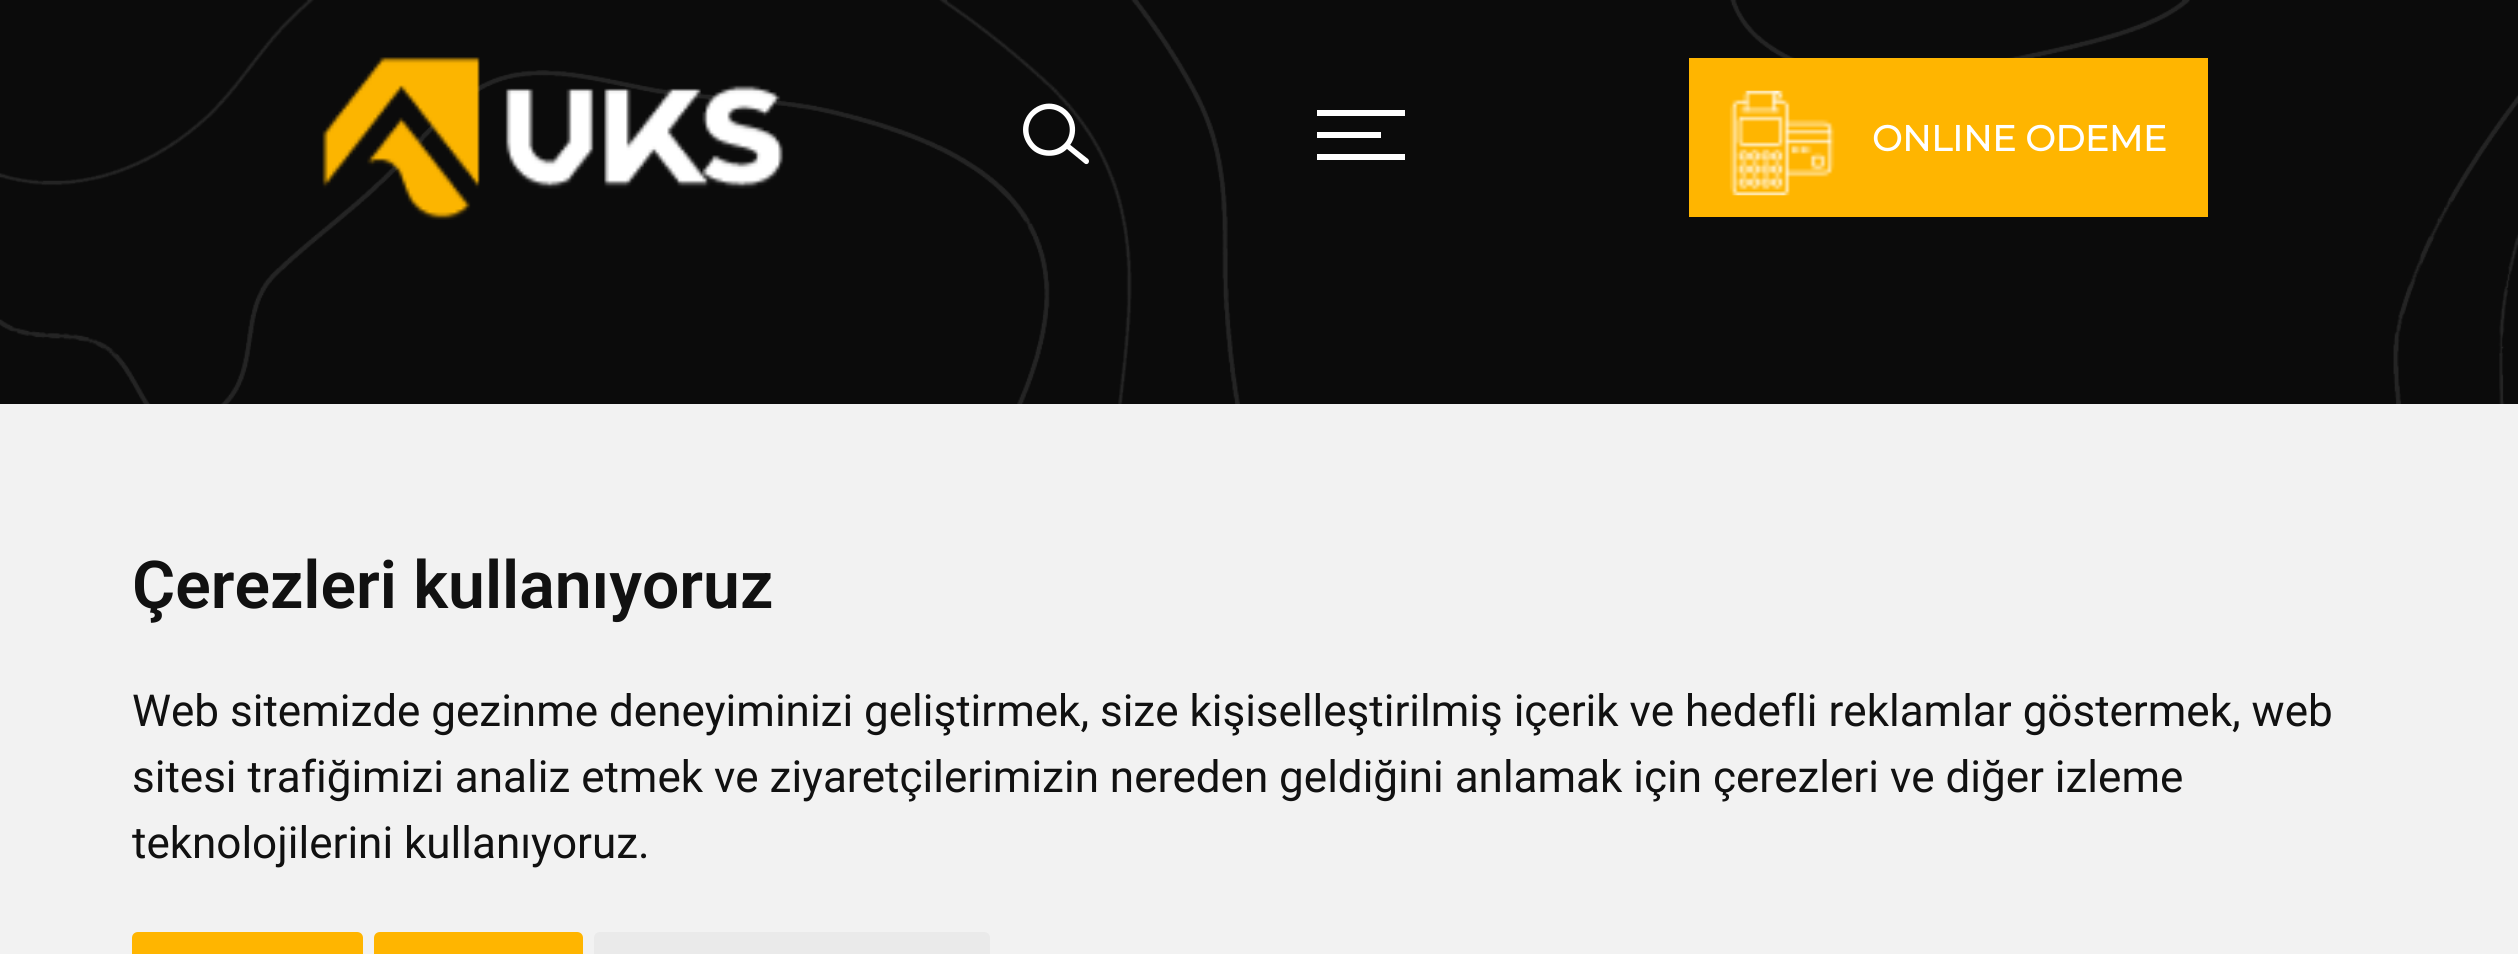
import math
import cairo



def draw_image(context, path, x, y, w, h):
    context.save()
    context.set_source_surface(cairo.ImageSurface.create_from_png(path), x, y)
    context.rectangle(x, y, w, h)
    context.fill()
    context.restore()


def draw(context):
    context.set_source_rgb(11 / 255, 11 / 255, 11 / 255)
    context.paint()
    draw_image(context, "images/1.png", 0, 0, 2518, 404)
    draw_image(context, "images/2.png", 322, 57, 462, 163)
    draw_image(context, "images/3.png", 1023, 103, 66, 62)
    context.set_source_rgb(1, 1, 1)
    context.rectangle(1317, 110, 88, 6)
    context.fill()
    context.rectangle(1317, 132, 64, 6)
    context.fill()
    context.rectangle(1317, 154, 88, 6)
    context.fill()
    context.set_source_rgb(1, 181 / 255, 0)
    context.rectangle(1689, 58, 519, 159)
    context.fill()
    draw_image(context, "images/4.png", 1729, 90, 106, 106)
    context.set_source_rgb(242 / 255, 242 / 255, 242 / 255)
    context.rectangle(0, 404, 2518, 550)
    context.fill()
    context.set_source_rgb(1, 181 / 255, 0)
    context.new_path()
    context.move_to(138, 932)
    context.line_to(357, 932)
    context.curve_to(360.5, 932, 363, 934.5, 363, 938)
    context.line_to(363, 954)
    context.line_to(132, 954)
    context.line_to(132, 938)
    context.curve_to(132, 934.5, 134.5, 932, 138, 932)
    context.close_path()
    context.fill()
    context.new_path()
    context.move_to(380, 932)
    context.line_to(577, 932)
    context.curve_to(580.5, 932, 583, 934.5, 583, 938)
    context.line_to(583, 954)
    context.line_to(374, 954)
    context.line_to(374, 938)
    context.curve_to(374, 934.5, 376.5, 932, 380, 932)
    context.close_path()
    context.fill()
    context.set_source_rgb(234 / 255, 234 / 255, 234 / 255)
    context.new_path()
    context.move_to(600, 932)
    context.line_to(984, 932)
    context.curve_to(987.5, 932, 990, 934.5, 990, 938)
    context.line_to(990, 954)
    context.line_to(594, 954)
    context.line_to(594, 938)
    context.curve_to(594, 934.5, 596.5, 932, 600, 932)
    context.close_path()
    context.fill()
    context.select_font_face("Montserrat", cairo.FontSlant.NORMAL, cairo.FontWeight.BOLD)
    context.set_font_size(35.75)
    context.set_source_rgb(1, 1, 1)
    context.move_to(1872, 151)
    context.show_text("ONLINE ODEME")
    context.select_font_face("Roboto SemiBold")
    context.set_font_size(66)
    context.set_source_rgb(17 / 255, 17 / 255, 17 / 255)
    context.move_to(132, 608)
    context.show_text("Çerezleri kullanıyoruz")
    context.select_font_face("Roboto")
    context.set_font_size(44)
    context.move_to(132, 726)
    context.show_text("Web sitemizde gezinme deneyiminizi geliştirmek, size kişiselleştirilmiş içerik ve hedefli reklamlar göstermek, web")
    context.move_to(132, 792)
    context.show_text("sitesi trafiğimizi analiz etmek ve ziyaretçilerimizin nereden geldiğini anlamak için çerezleri ve diğer izleme")
    context.move_to(132, 858)
    context.show_text("teknolojilerini kullanıyoruz.")


surface = cairo.ImageSurface(cairo.Format.RGB24, 2518, 954)
context = cairo.Context(surface)
options = cairo.FontOptions()
options.set_hint_metrics(cairo.HintMetrics.OFF)
options.set_hint_style(cairo.HintStyle.NONE)
context.set_font_options(options)
context.set_miter_limit(4)
draw(context)
surface.write_to_png("out.png")
